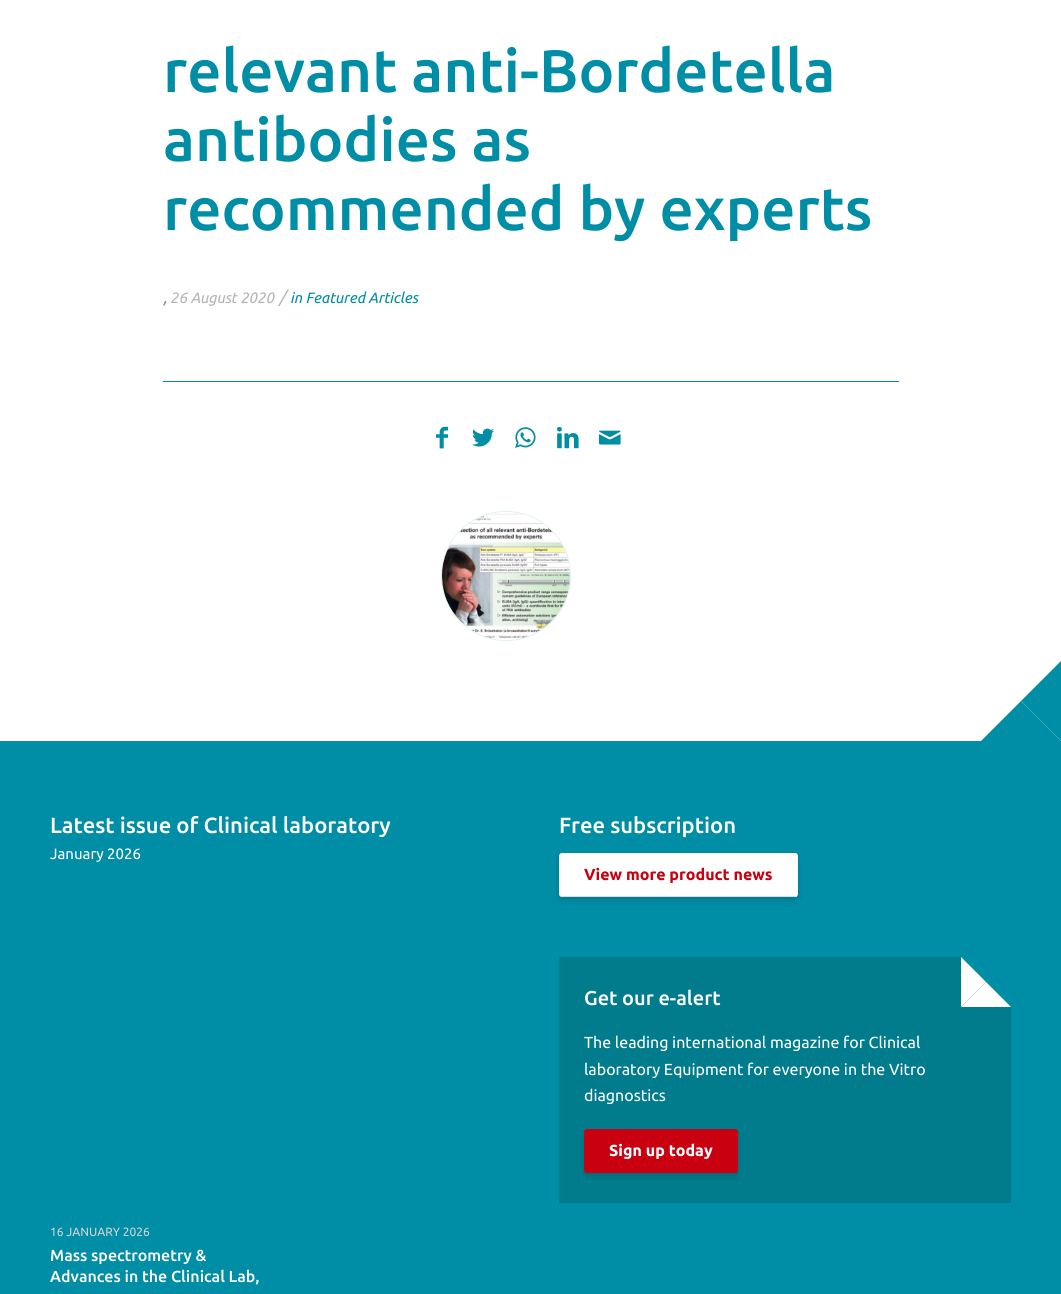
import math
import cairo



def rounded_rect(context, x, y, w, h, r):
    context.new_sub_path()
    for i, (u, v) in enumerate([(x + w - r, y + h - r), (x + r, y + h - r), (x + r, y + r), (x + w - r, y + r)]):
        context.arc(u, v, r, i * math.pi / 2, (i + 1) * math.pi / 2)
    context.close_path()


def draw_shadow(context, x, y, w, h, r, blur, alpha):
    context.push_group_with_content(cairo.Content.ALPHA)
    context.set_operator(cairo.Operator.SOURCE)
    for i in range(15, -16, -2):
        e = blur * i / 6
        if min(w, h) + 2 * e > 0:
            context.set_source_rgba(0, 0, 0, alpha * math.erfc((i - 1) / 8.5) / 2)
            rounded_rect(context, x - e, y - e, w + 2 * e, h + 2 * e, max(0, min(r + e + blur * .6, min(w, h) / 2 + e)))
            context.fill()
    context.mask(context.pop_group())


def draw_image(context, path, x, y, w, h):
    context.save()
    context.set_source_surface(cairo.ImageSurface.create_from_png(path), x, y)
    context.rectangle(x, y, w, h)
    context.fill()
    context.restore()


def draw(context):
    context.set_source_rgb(1, 1, 1)
    context.paint()
    context.set_source_rgb(0, 141 / 255, 166 / 255)
    context.rectangle(163, 381, 736, 1)
    context.fill()
    draw_image(context, "images/1.png", 436, 426, 12, 23)
    draw_image(context, "images/2.png", 472, 428, 22, 19)
    draw_image(context, "images/3.png", 515, 427, 21, 21)
    draw_image(context, "images/4.png", 557, 427, 22, 22)
    draw_image(context, "images/5.png", 599, 430, 22, 15)
    context.arc(506, 576, 64.5, 0, 2 * math.pi)
    context.set_source_rgb(224 / 255, 240 / 255, 240 / 255)
    context.set_line_width(1)
    context.stroke()
    draw_image(context, "images/6.png", 442, 512, 128, 128)
    context.set_source_rgb(0, 141 / 255, 166 / 255)
    context.rectangle(0, 741, 1061, 553)
    context.fill()
    context.new_path()
    context.move_to(1061, 661)
    context.line_to(1061, 741)
    context.line_to(1021, 701)
    context.close_path()
    context.fill()
    context.new_path()
    context.move_to(1061, 741)
    context.line_to(981, 741)
    context.line_to(1021, 701)
    context.close_path()
    context.fill()
    context.set_source_rgb(0, 0, 0)
    draw_shadow(context, 559, 856, 239, 44, 3, 3, 0.15)
    context.set_source_rgb(1, 1, 1)
    rounded_rect(context, 559, 853, 239, 44, 3)
    context.fill()
    context.set_source_rgb(221 / 255, 221 / 255, 221 / 255)
    context.rectangle(561, 896, 236, 1)
    context.fill()
    context.set_source_rgb(1 / 255, 124 / 255, 140 / 255)
    context.rectangle(559, 957, 452, 246)
    context.fill()
    context.set_source_rgb(0, 141 / 255, 166 / 255)
    context.new_path()
    context.move_to(961, 957)
    context.line_to(1011, 957)
    context.line_to(986, 982)
    context.close_path()
    context.fill()
    context.new_path()
    context.move_to(1011, 957)
    context.line_to(1011, 1007)
    context.line_to(986, 982)
    context.close_path()
    context.fill()
    context.set_source_rgb(1, 1, 1)
    context.new_path()
    context.move_to(1011, 1007)
    context.line_to(961, 1007)
    context.line_to(986, 982)
    context.close_path()
    context.fill()
    context.new_path()
    context.move_to(961, 1007)
    context.line_to(961, 957)
    context.line_to(986, 982)
    context.close_path()
    context.fill()
    context.set_source_rgb(0, 0, 0)
    draw_shadow(context, 584, 1132, 154, 44, 3, 3, 0.15)
    context.set_source_rgb(200 / 255, 0, 16 / 255)
    rounded_rect(context, 584, 1129, 154, 44, 3)
    context.fill()
    context.rectangle(586, 1172, 151, 1)
    context.fill()
    context.select_font_face("Ubuntu Medium")
    context.set_font_size(60)
    context.set_source_rgb(0, 141 / 255, 166 / 255)
    context.move_to(163, 92)
    context.show_text("relevant anti-Bordetella")
    context.move_to(163, 161)
    context.show_text("antibodies as")
    context.move_to(163, 230)
    context.show_text("recommended by experts")
    context.select_font_face("Ubuntu", cairo.FontSlant.ITALIC)
    context.set_font_size(17)
    context.set_source_rgb(136 / 255, 136 / 255, 136 / 255)
    context.move_to(163, 303)
    context.show_text(",")
    context.set_font_size(15)
    context.set_source_rgb(179 / 255, 179 / 255, 179 / 255)
    context.move_to(170, 303)
    context.show_text("26 August 2020")
    context.set_font_size(17)
    context.move_to(279, 303)
    context.show_text("/")
    context.set_font_size(15)
    context.set_source_rgb(0, 141 / 255, 166 / 255)
    context.move_to(290, 303)
    context.show_text("in Featured Articles")
    context.select_font_face("Ubuntu Medium")
    context.set_font_size(22)
    context.set_source_rgb(1, 1, 1)
    context.move_to(50, 833)
    context.show_text("Latest issue of Clinical laboratory")
    context.select_font_face("Ubuntu")
    context.set_font_size(15)
    context.move_to(50, 859)
    context.show_text("January 2026")
    context.set_font_size(12)
    context.set_source_rgb(212 / 255, 212 / 255, 212 / 255)
    context.move_to(50, 1236)
    context.show_text("16 JANUARY 2026")
    context.select_font_face("Ubuntu Medium")
    context.set_font_size(16)
    context.set_source_rgb(1, 1, 1)
    context.move_to(50, 1261)
    context.show_text("Mass spectrometry &")
    context.move_to(50, 1282)
    context.show_text("Advances in the Clinical Lab,")
    context.set_font_size(22)
    context.move_to(559, 833)
    context.show_text("Free subscription")
    context.select_font_face("Ubuntu", cairo.FontSlant.NORMAL, cairo.FontWeight.BOLD)
    context.set_font_size(16)
    context.set_source_rgb(200 / 255, 0, 16 / 255)
    context.move_to(584, 880)
    context.show_text("View more product news")
    context.select_font_face("Ubuntu Medium")
    context.set_font_size(20)
    context.set_source_rgb(1, 1, 1)
    context.move_to(584, 1005)
    context.show_text("Get our e-alert")
    context.select_font_face("Ubuntu")
    context.set_font_size(16)
    context.move_to(584, 1048)
    context.show_text("The leading international magazine for Clinical")
    context.move_to(584, 1075)
    context.show_text("laboratory Equipment for everyone in the Vitro")
    context.move_to(584, 1101)
    context.show_text("diagnostics")
    context.select_font_face("Ubuntu", cairo.FontSlant.NORMAL, cairo.FontWeight.BOLD)
    context.move_to(609, 1156)
    context.show_text("Sign up today")


surface = cairo.ImageSurface(cairo.Format.RGB24, 1061, 1294)
context = cairo.Context(surface)
options = cairo.FontOptions()
options.set_hint_metrics(cairo.HintMetrics.OFF)
options.set_hint_style(cairo.HintStyle.NONE)
context.set_font_options(options)
context.set_miter_limit(4)
draw(context)
surface.write_to_png("out.png")
